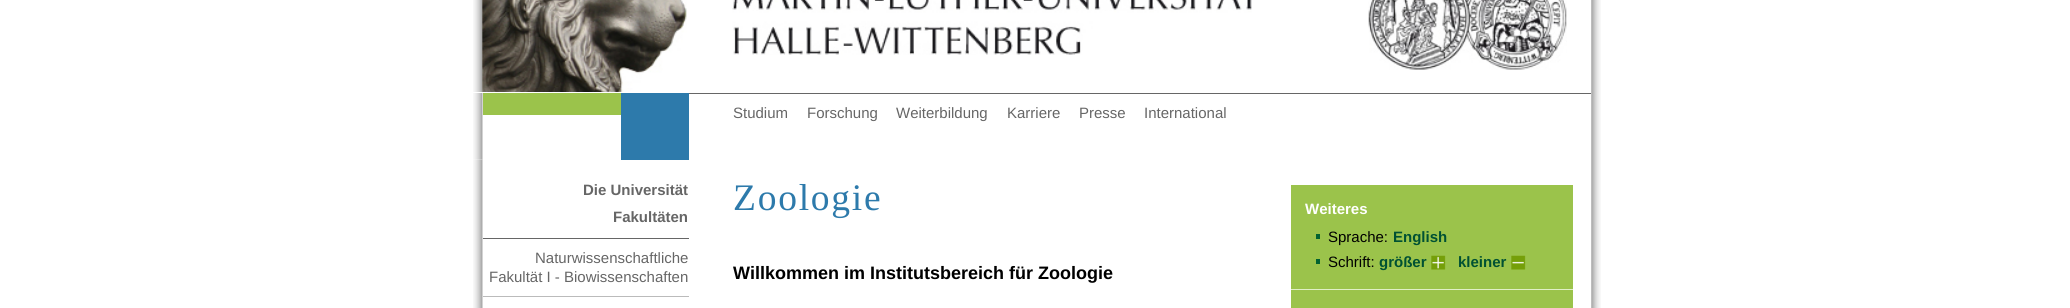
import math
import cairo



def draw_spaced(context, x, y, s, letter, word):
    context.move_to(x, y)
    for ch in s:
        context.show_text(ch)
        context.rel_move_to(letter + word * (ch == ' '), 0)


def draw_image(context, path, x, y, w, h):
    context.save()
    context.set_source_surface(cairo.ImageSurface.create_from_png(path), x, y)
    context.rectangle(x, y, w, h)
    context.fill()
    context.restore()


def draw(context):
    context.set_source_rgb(1, 1, 1)
    context.paint()
    draw_image(context, "images/1.png", 1591, 0, 10, 308)
    draw_image(context, "images/2.png", 473, 0, 10, 92)
    draw_image(context, "images/3.png", 482, 0, 205, 92)
    draw_image(context, "images/4.png", 482, 0, 1, 92)
    draw_image(context, "images/5.png", 732, 0, 520, 55)
    context.set_source_rgb(240 / 255, 240 / 255, 240 / 255)
    context.rectangle(732, 8, 1, 1)
    context.fill()
    draw_image(context, "images/6.png", 1368, 0, 199, 70)
    draw_image(context, "images/7.png", 473, 93, 10, 67)
    context.set_source_rgb(155 / 255, 195 / 255, 75 / 255)
    context.rectangle(483, 93, 138, 22)
    context.fill()
    context.set_source_rgb(45 / 255, 122 / 255, 171 / 255)
    context.rectangle(621, 93, 68, 67)
    context.fill()
    context.set_source_rgb(102 / 255, 102 / 255, 102 / 255)
    context.rectangle(689, 93, 902, 1)
    context.fill()
    draw_image(context, "images/8.png", 473, 159, 10, 149)
    context.rectangle(483, 238, 206, 1)
    context.fill()
    context.set_source_rgb(187 / 255, 187 / 255, 187 / 255)
    context.rectangle(483, 296, 206, 1)
    context.fill()
    context.set_source_rgb(155 / 255, 195 / 255, 75 / 255)
    context.rectangle(1291, 185, 282, 123)
    context.fill()
    context.set_source_rgb(224 / 255, 239 / 255, 198 / 255)
    context.rectangle(1291, 289, 282, 1)
    context.fill()
    context.set_source_rgb(2 / 255, 98 / 255, 49 / 255)
    context.rectangle(1316, 234, 4, 5)
    context.fill()
    context.rectangle(1316, 259, 4, 5)
    context.fill()
    draw_image(context, "images/9.png", 1431, 255, 15, 15)
    draw_image(context, "images/10.png", 1511, 255, 15, 15)
    context.select_font_face("Liberation Sans")
    context.set_font_size(15)
    context.set_source_rgb(102 / 255, 102 / 255, 102 / 255)
    context.move_to(733, 118)
    context.show_text("Studium")
    context.move_to(807, 118)
    context.show_text("Forschung")
    context.move_to(896, 118)
    context.show_text("Weiterbildung")
    context.move_to(1007, 118)
    context.show_text("Karriere")
    context.move_to(1079, 118)
    context.show_text("Presse")
    context.move_to(1144, 118)
    context.show_text("International")
    context.select_font_face("Liberation Sans", cairo.FontSlant.NORMAL, cairo.FontWeight.BOLD)
    context.move_to(583, 195)
    context.show_text("Die Universität")
    context.move_to(613, 222)
    context.show_text("Fakultäten")
    context.select_font_face("Liberation Sans")
    context.move_to(535, 263)
    context.show_text("Naturwissenschaftliche")
    context.move_to(489, 282)
    context.show_text("Fakultät I - Biowissenschaften")
    context.select_font_face("Liberation Serif")
    context.set_font_size(37.5)
    context.set_source_rgb(45 / 255, 122 / 255, 171 / 255)
    draw_spaced(context, 733, 210, "Zoologie", 1.75, 0)
    context.select_font_face("Liberation Sans", cairo.FontSlant.NORMAL, cairo.FontWeight.BOLD)
    context.set_font_size(18)
    context.set_source_rgb(0, 0, 0)
    context.move_to(733, 279)
    context.show_text("Willkommen im Institutsbereich für Zoologie")
    context.set_font_size(15)
    context.set_source_rgb(1, 1, 1)
    context.move_to(1305, 214)
    context.show_text("Weiteres")
    context.select_font_face("Liberation Sans")
    context.set_source_rgb(0, 0, 0)
    context.move_to(1328, 242)
    context.show_text("Sprache:")
    context.select_font_face("Liberation Sans", cairo.FontSlant.NORMAL, cairo.FontWeight.BOLD)
    context.set_source_rgb(0, 81 / 255, 51 / 255)
    context.move_to(1393, 242)
    context.show_text("English")
    context.select_font_face("Liberation Sans")
    context.set_source_rgb(0, 0, 0)
    context.move_to(1328, 267)
    context.show_text("Schrift:")
    context.select_font_face("Liberation Sans", cairo.FontSlant.NORMAL, cairo.FontWeight.BOLD)
    context.set_source_rgb(0, 81 / 255, 51 / 255)
    context.move_to(1379, 267)
    context.show_text("größer")
    context.move_to(1458, 267)
    context.show_text("kleiner")


surface = cairo.ImageSurface(cairo.Format.RGB24, 2070, 308)
context = cairo.Context(surface)
options = cairo.FontOptions()
options.set_hint_metrics(cairo.HintMetrics.OFF)
options.set_hint_style(cairo.HintStyle.NONE)
context.set_font_options(options)
context.set_miter_limit(4)
draw(context)
surface.write_to_png("out.png")
